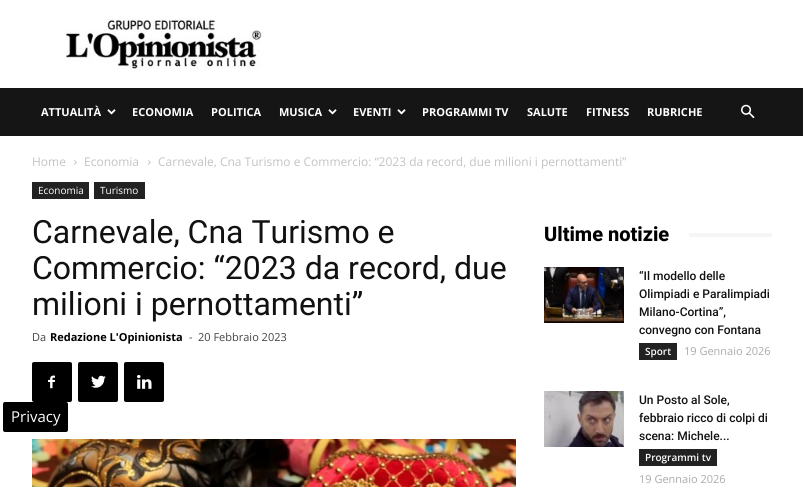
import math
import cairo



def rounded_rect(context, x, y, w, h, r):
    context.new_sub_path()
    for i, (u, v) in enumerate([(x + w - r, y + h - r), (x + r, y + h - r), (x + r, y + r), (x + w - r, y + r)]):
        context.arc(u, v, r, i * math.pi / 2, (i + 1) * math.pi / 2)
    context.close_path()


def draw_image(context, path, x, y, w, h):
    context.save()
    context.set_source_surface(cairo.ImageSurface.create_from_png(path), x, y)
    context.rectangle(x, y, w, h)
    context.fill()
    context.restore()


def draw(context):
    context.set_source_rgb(1, 1, 1)
    context.paint()
    draw_image(context, "images/1.png", 66, 18, 197, 51)
    context.set_source_rgb(21 / 255, 21 / 255, 21 / 255)
    context.rectangle(0, 88, 803, 48)
    context.fill()
    draw_image(context, "images/2.png", 107, 109, 9, 6)
    draw_image(context, "images/2.png", 328, 109, 9, 6)
    draw_image(context, "images/2.png", 397, 109, 9, 6)
    draw_image(context, "images/3.png", 741, 104, 14, 15)
    draw_image(context, "images/4.png", 74, 160, 3, 5)
    draw_image(context, "images/4.png", 148, 160, 3, 5)
    context.set_source_rgb(34 / 255, 34 / 255, 34 / 255)
    context.rectangle(32, 182, 57, 17)
    context.fill()
    context.rectangle(94, 182, 51, 17)
    context.fill()
    context.set_source_rgb(0, 0, 0)
    rounded_rect(context, 32, 362, 40, 40, 2)
    context.fill()
    draw_image(context, "images/5.png", 48, 375, 7, 14)
    rounded_rect(context, 78, 362, 40, 40, 2)
    context.fill()
    draw_image(context, "images/6.png", 91, 375, 15, 13)
    rounded_rect(context, 124, 362, 40, 40, 2)
    context.fill()
    draw_image(context, "images/7.png", 137, 375, 15, 14)
    draw_image(context, "images/8.png", 32, 439, 484, 48)
    context.set_source_rgb(245 / 255, 245 / 255, 245 / 255)
    context.rectangle(689, 233, 83, 4)
    context.fill()
    draw_image(context, "images/9.png", 544, 267, 80, 56)
    context.set_source_rgb(34 / 255, 34 / 255, 34 / 255)
    context.rectangle(639, 343, 38, 17)
    context.fill()
    draw_image(context, "images/10.png", 544, 391, 80, 56)
    context.rectangle(639, 449, 78, 17)
    context.fill()
    context.set_source_rgb(0, 0, 0)
    rounded_rect(context, 3, 402, 65, 30, 2)
    context.fill()
    context.select_font_face("Open Sans", cairo.FontSlant.NORMAL, cairo.FontWeight.BOLD)
    context.set_font_size(11)
    context.set_source_rgb(1, 1, 1)
    context.move_to(41, 116)
    context.show_text("ATTUALITÀ")
    context.move_to(132, 116)
    context.show_text("ECONOMIA")
    context.move_to(211, 116)
    context.show_text("POLITICA")
    context.move_to(279, 116)
    context.show_text("MUSICA")
    context.move_to(353, 116)
    context.show_text("EVENTI")
    context.move_to(422, 116)
    context.show_text("PROGRAMMI TV")
    context.move_to(527, 116)
    context.show_text("SALUTE")
    context.move_to(586, 116)
    context.show_text("FITNESS")
    context.move_to(647, 116)
    context.show_text("RUBRICHE")
    context.select_font_face("Open Sans")
    context.set_font_size(12)
    context.set_source_rgb(195 / 255, 195 / 255, 195 / 255)
    context.move_to(32, 166)
    context.show_text("Home")
    context.move_to(84, 166)
    context.show_text("Economia")
    context.move_to(158, 166)
    context.show_text("Carnevale, Cna Turismo e Commercio: “2023 da record, due milioni i pernottamenti”")
    context.set_font_size(10)
    context.set_source_rgb(1, 1, 1)
    context.move_to(38, 194)
    context.show_text("Economia")
    context.move_to(100, 194)
    context.show_text("Turismo")
    context.select_font_face("Roboto")
    context.set_font_size(32)
    context.set_source_rgb(17 / 255, 17 / 255, 17 / 255)
    context.move_to(32, 243)
    context.show_text("Carnevale, Cna Turismo e")
    context.move_to(32, 279)
    context.show_text("Commercio: “2023 da record, due")
    context.move_to(32, 315)
    context.show_text("milioni i pernottamenti”")
    context.select_font_face("Open Sans")
    context.set_font_size(11)
    context.set_source_rgb(68 / 255, 68 / 255, 68 / 255)
    context.move_to(32, 341)
    context.show_text("Da")
    context.select_font_face("Open Sans", cairo.FontSlant.NORMAL, cairo.FontWeight.BOLD)
    context.set_source_rgb(0, 0, 0)
    context.move_to(50, 341)
    context.show_text("Redazione L'Opinionista")
    context.select_font_face("Open Sans")
    context.set_source_rgb(68 / 255, 68 / 255, 68 / 255)
    context.move_to(189, 341)
    context.show_text("-")
    context.move_to(198, 341)
    context.show_text("20 Febbraio 2023")
    context.select_font_face("Roboto ExtraBold")
    context.set_font_size(20)
    context.set_source_rgb(0, 0, 0)
    context.move_to(544, 241)
    context.show_text("Ultime notizie")
    context.select_font_face("Roboto Medium")
    context.set_font_size(12)
    context.set_source_rgb(17 / 255, 17 / 255, 17 / 255)
    context.move_to(639, 280)
    context.show_text("“Il modello delle")
    context.move_to(639, 298)
    context.show_text("Olimpiadi e Paralimpiadi")
    context.move_to(639, 316)
    context.show_text("Milano-Cortina”,")
    context.move_to(639, 334)
    context.show_text("convegno con Fontana")
    context.select_font_face("Open Sans SemiBold")
    context.set_font_size(10)
    context.set_source_rgb(1, 1, 1)
    context.move_to(645, 355)
    context.show_text("Sport")
    context.select_font_face("Open Sans")
    context.set_font_size(11)
    context.set_source_rgb(170 / 255, 170 / 255, 170 / 255)
    context.move_to(684, 355)
    context.show_text("19 Gennaio 2026")
    context.select_font_face("Roboto Medium")
    context.set_font_size(12)
    context.set_source_rgb(17 / 255, 17 / 255, 17 / 255)
    context.move_to(639, 404)
    context.show_text("Un Posto al Sole,")
    context.move_to(639, 422)
    context.show_text("febbraio ricco di colpi di")
    context.move_to(639, 440)
    context.show_text("scena: Michele...")
    context.select_font_face("Open Sans SemiBold")
    context.set_font_size(10)
    context.set_source_rgb(1, 1, 1)
    context.move_to(645, 461)
    context.show_text("Programmi tv")
    context.select_font_face("Open Sans")
    context.set_font_size(11)
    context.set_source_rgb(170 / 255, 170 / 255, 170 / 255)
    context.move_to(639, 483)
    context.show_text("19 Gennaio 2026")
    context.set_font_size(15)
    context.set_source_rgb(1, 1, 1)
    context.move_to(11, 422)
    context.show_text("Privacy")


surface = cairo.ImageSurface(cairo.Format.RGB24, 803, 487)
context = cairo.Context(surface)
options = cairo.FontOptions()
options.set_hint_metrics(cairo.HintMetrics.OFF)
options.set_hint_style(cairo.HintStyle.NONE)
context.set_font_options(options)
context.set_miter_limit(4)
draw(context)
surface.write_to_png("out.png")
